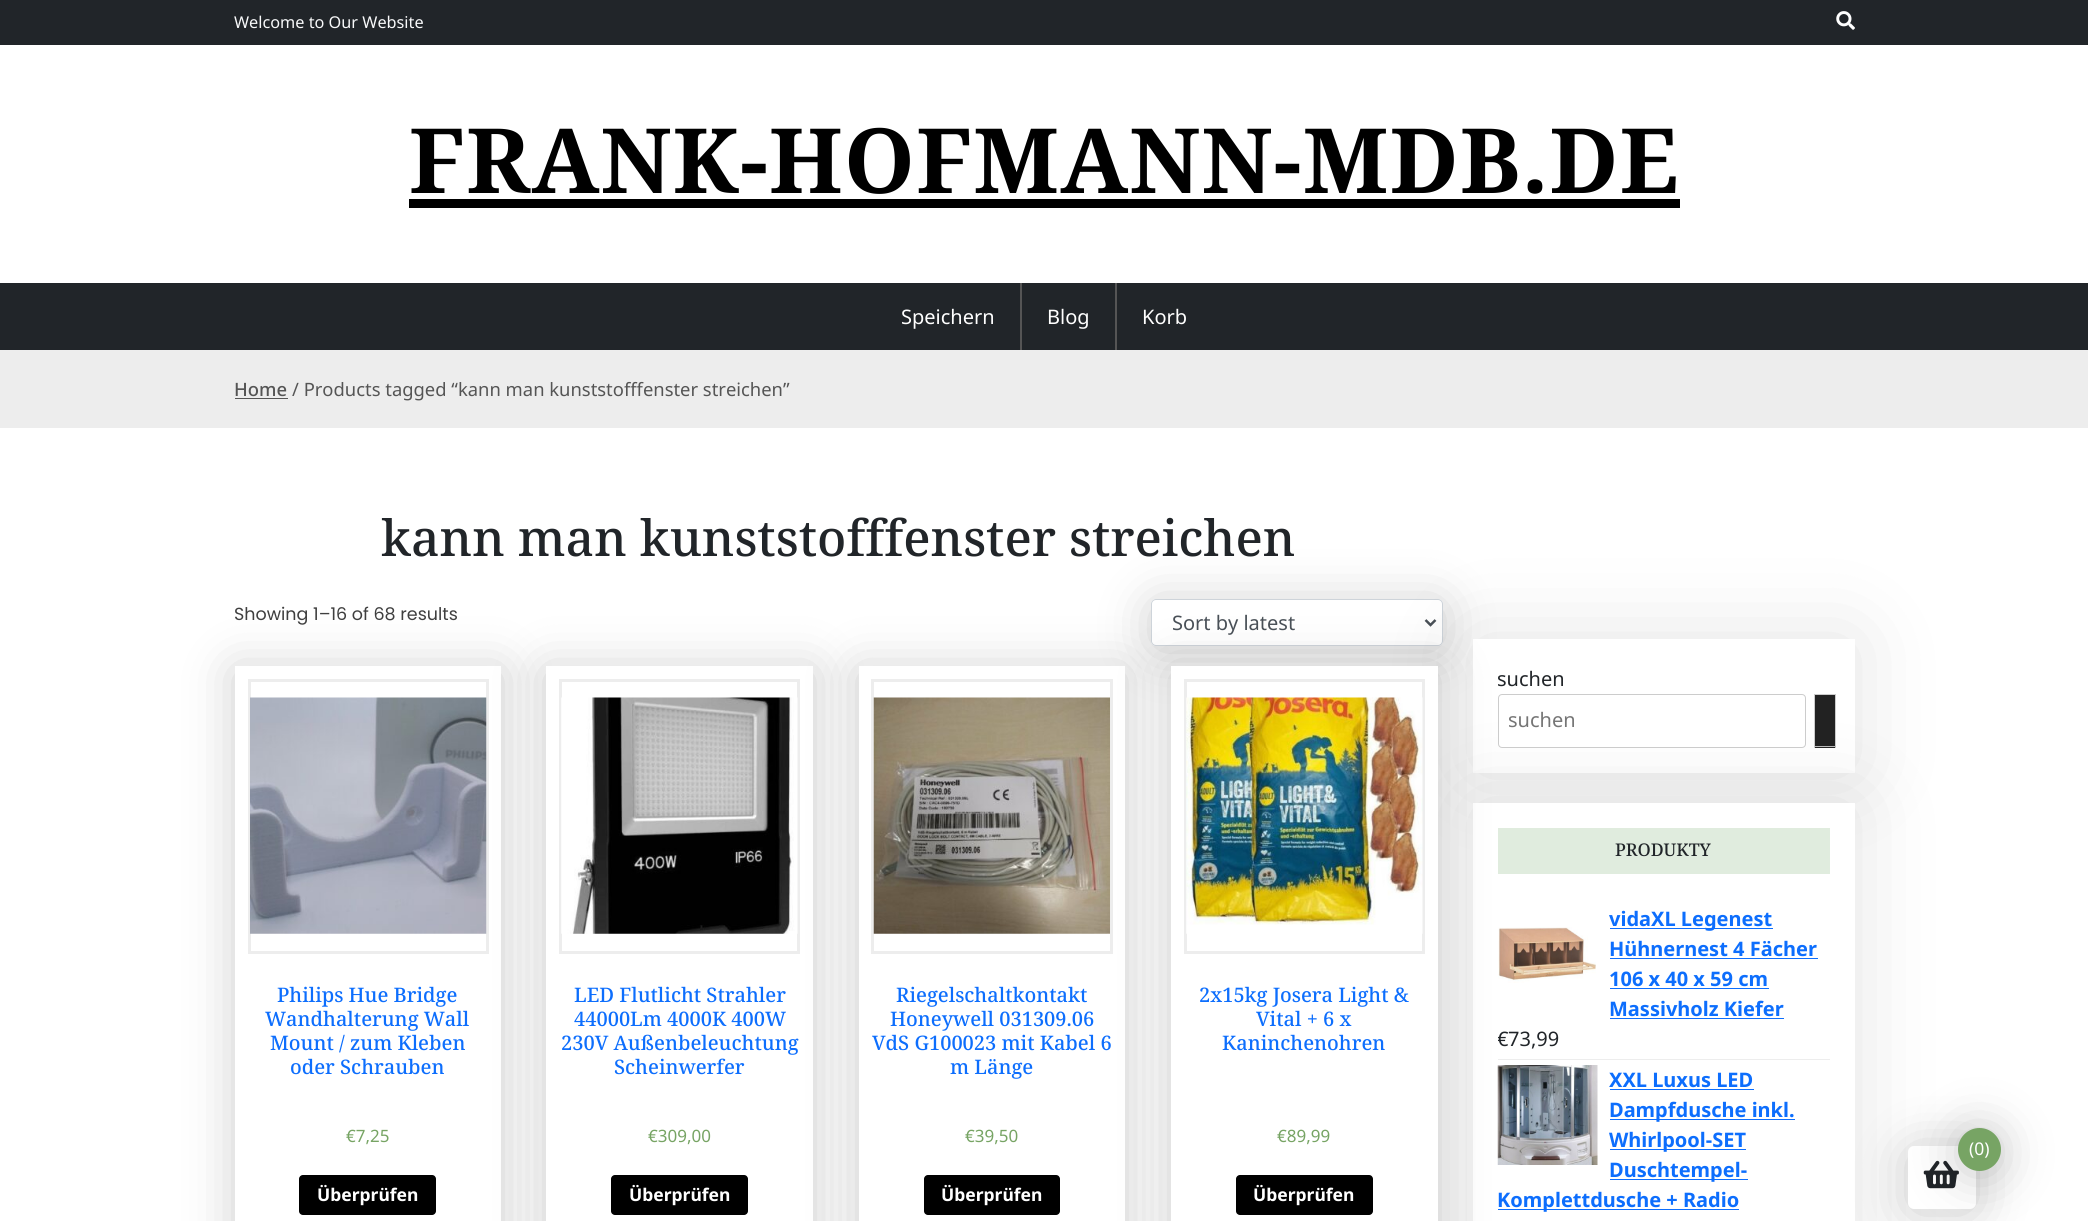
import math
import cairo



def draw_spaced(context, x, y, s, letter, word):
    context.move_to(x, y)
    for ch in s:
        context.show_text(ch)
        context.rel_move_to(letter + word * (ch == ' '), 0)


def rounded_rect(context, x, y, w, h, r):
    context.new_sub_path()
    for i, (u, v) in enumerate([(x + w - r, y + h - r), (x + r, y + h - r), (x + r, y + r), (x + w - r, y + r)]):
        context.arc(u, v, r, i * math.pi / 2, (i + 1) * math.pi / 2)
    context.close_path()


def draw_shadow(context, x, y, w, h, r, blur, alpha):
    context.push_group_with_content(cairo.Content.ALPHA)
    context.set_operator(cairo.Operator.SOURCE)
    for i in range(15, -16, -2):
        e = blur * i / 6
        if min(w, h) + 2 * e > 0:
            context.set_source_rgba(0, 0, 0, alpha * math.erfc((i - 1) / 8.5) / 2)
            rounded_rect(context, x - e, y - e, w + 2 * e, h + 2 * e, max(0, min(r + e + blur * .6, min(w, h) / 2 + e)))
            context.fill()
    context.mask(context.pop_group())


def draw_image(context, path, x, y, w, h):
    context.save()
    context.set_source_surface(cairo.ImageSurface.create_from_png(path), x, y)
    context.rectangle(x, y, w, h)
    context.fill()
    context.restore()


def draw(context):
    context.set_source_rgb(1, 1, 1)
    context.paint()
    context.set_source_rgb(33 / 255, 37 / 255, 41 / 255)
    context.rectangle(0, 0, 2088, 45)
    context.fill()
    draw_image(context, "images/1.png", 1836, 11, 19, 19)
    context.set_source_rgb(0, 0, 0)
    context.rectangle(409, 199, 1271, 9)
    context.fill()
    context.set_source_rgb(33 / 255, 37 / 255, 41 / 255)
    context.rectangle(0, 283, 2088, 67)
    context.fill()
    context.set_source_rgb(85 / 255, 85 / 255, 85 / 255)
    context.rectangle(1020, 283, 2, 67)
    context.fill()
    context.rectangle(1115, 283, 2, 67)
    context.fill()
    context.set_source_rgb(237 / 255, 237 / 255, 237 / 255)
    context.rectangle(0, 350, 2088, 78)
    context.fill()
    context.set_source_rgb(85 / 255, 85 / 255, 85 / 255)
    context.rectangle(235, 398, 53, 1)
    context.fill()
    context.save()
    context.set_fill_rule(cairo.FillRule.EVEN_ODD)
    context.new_path()
    context.move_to(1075, 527)
    context.line_to(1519, 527)
    context.line_to(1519, 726)
    context.line_to(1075, 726)
    context.close_path()
    context.move_to(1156, 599)
    context.line_to(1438, 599)
    context.curve_to(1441, 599, 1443, 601, 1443, 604)
    context.line_to(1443, 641)
    context.curve_to(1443, 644, 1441, 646, 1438, 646)
    context.line_to(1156, 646)
    context.curve_to(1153, 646, 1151, 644, 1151, 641)
    context.line_to(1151, 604)
    context.curve_to(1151, 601, 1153, 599, 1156, 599)
    context.close_path()
    context.clip()
    context.set_source_rgb(0, 0, 0)
    draw_shadow(context, 1151, 603, 292, 47, 5, 25, 0.2)
    context.restore()
    rounded_rect(context, 1151.5, 599.5, 291, 46, 4.5)
    context.set_source_rgb(206 / 255, 212 / 255, 218 / 255)
    context.set_line_width(1)
    context.stroke()
    context.new_path()
    context.move_to(1425.5, 620)
    context.line_to(1430.5, 625)
    context.line_to(1435.5, 620)
    context.set_source_rgb(73 / 255, 80 / 255, 87 / 255)
    context.set_line_width(2.5)
    context.stroke()
    context.set_source_rgb(0, 0, 0)
    draw_shadow(context, 235, 670, 266, 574, 0, 25, 0.2)
    context.set_source_rgb(1, 1, 1)
    context.rectangle(235, 666, 266, 555)
    context.fill()
    context.rectangle(249.5, 680.5, 238, 272)
    context.set_source_rgb(237 / 255, 237 / 255, 237 / 255)
    context.set_line_width(3)
    context.stroke()
    draw_image(context, "images/2.png", 250, 697, 237, 237)
    context.set_source_rgb(0, 0, 0)
    rounded_rect(context, 299, 1175, 137, 40, 4)
    context.fill()
    context.set_source_rgb(0, 0, 0)
    draw_shadow(context, 546, 670, 267, 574, 0, 25, 0.2)
    context.set_source_rgb(1, 1, 1)
    context.rectangle(546, 666, 267, 555)
    context.fill()
    context.rectangle(560.5, 680.5, 238, 272)
    context.set_source_rgb(237 / 255, 237 / 255, 237 / 255)
    context.stroke()
    draw_image(context, "images/3.png", 561, 697, 237, 237)
    context.set_source_rgb(0, 0, 0)
    rounded_rect(context, 611, 1175, 137, 40, 4)
    context.fill()
    context.set_source_rgb(0, 0, 0)
    draw_shadow(context, 859, 670, 266, 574, 0, 25, 0.2)
    context.set_source_rgb(1, 1, 1)
    context.rectangle(859, 666, 266, 555)
    context.fill()
    context.rectangle(872.5, 680.5, 239, 272)
    context.set_source_rgb(237 / 255, 237 / 255, 237 / 255)
    context.stroke()
    draw_image(context, "images/4.png", 873, 697, 237, 237)
    context.set_source_rgb(0, 0, 0)
    rounded_rect(context, 924, 1175, 136, 40, 4)
    context.fill()
    context.set_source_rgb(0, 0, 0)
    draw_shadow(context, 1473, 639, 382, 134, 0, 44, 0.11)
    context.set_source_rgb(1, 1, 1)
    context.rectangle(1473, 639, 382, 134)
    context.fill()
    context.set_source_rgb(0, 0, 0)
    draw_shadow(context, 1473, 803, 382, 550, 0, 44, 0.11)
    context.set_source_rgb(1, 1, 1)
    rounded_rect(context, 1498.5, 694.5, 307, 53, 3.5)
    context.fill_preserve()
    context.set_source_rgb(204 / 255, 204 / 255, 204 / 255)
    context.set_line_width(1)
    context.stroke()
    context.set_source_rgb(1, 1, 1)
    context.rectangle(1473, 803, 382, 418)
    context.fill()
    context.set_source_rgb(224 / 255, 236 / 255, 222 / 255)
    context.rectangle(1498, 828, 332, 46)
    context.fill()
    context.set_source_rgb(237 / 255, 237 / 255, 237 / 255)
    context.rectangle(1498, 1059, 332, 1)
    context.fill()
    draw_image(context, "images/6.png", 1498, 927, 98, 56)
    draw_image(context, "images/7.png", 1497, 1065, 101, 100)
    context.set_source_rgb(13 / 255, 110 / 255, 253 / 255)
    context.rectangle(1498, 1209, 241, 1)
    context.fill()
    context.set_source_rgb(0, 0, 0)
    draw_shadow(context, 1171, 670, 267, 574, 0, 25, 0.2)
    context.set_source_rgb(1, 1, 1)
    context.rectangle(1171, 666, 267, 555)
    context.fill()
    context.rectangle(1185.5, 680.5, 238, 272)
    context.set_source_rgb(237 / 255, 237 / 255, 237 / 255)
    context.set_line_width(3)
    context.stroke()
    draw_image(context, "images/5.png", 1186, 697, 237, 237)
    context.set_source_rgb(0, 0, 0)
    rounded_rect(context, 1236, 1175, 137, 40, 4)
    context.fill()
    context.set_source_rgb(34 / 255, 34 / 255, 34 / 255)
    context.rectangle(1815, 695, 20, 53)
    context.fill()
    context.set_source_rgb(204 / 255, 204 / 255, 204 / 255)
    context.rectangle(1814, 694, 22, 1)
    context.fill()
    context.rectangle(1835, 694, 1, 54)
    context.fill()
    context.set_source_rgb(187 / 255, 187 / 255, 187 / 255)
    context.rectangle(1814, 746, 22, 1)
    context.fill()
    context.set_source_rgb(204 / 255, 204 / 255, 204 / 255)
    context.rectangle(1814, 694, 1, 54)
    context.fill()
    context.set_source_rgb(13 / 255, 110 / 255, 253 / 255)
    context.rectangle(1610, 928, 163, 1)
    context.fill()
    context.rectangle(1610, 958, 208, 1)
    context.fill()
    context.rectangle(1610, 988, 159, 1)
    context.fill()
    context.rectangle(1610, 1018, 174, 1)
    context.fill()
    context.rectangle(1610, 1089, 144, 1)
    context.fill()
    context.rectangle(1610, 1119, 185, 1)
    context.fill()
    context.rectangle(1610, 1149, 136, 1)
    context.fill()
    context.rectangle(1610, 1179, 138, 1)
    context.fill()
    context.set_source_rgb(0, 0, 0)
    draw_shadow(context, 1908, 1150, 68, 63, 6, 25, 0.2)
    context.set_source_rgb(1, 1, 1)
    rounded_rect(context, 1908, 1146, 68, 63, 6)
    context.fill()
    draw_image(context, "images/8.png", 1923, 1160, 36, 29)
    context.set_source_rgb(0, 0, 0)
    draw_shadow(context, 1958, 1131, 43, 44, 21.5, 25, 0.2)
    context.set_source_rgb(119 / 255, 164 / 255, 100 / 255)
    context.arc(1979.5, 1149.5, 21.5, 0, 2 * math.pi)
    context.fill()
    context.select_font_face("Noto Sans")
    context.set_font_size(16.25)
    context.set_source_rgb(248 / 255, 249 / 255, 250 / 255)
    context.move_to(234, 28)
    context.show_text("Welcome to Our Website")
    context.select_font_face("Noto Serif", cairo.FontSlant.NORMAL, cairo.FontWeight.BOLD)
    context.set_font_size(90)
    context.set_source_rgb(0, 0, 0)
    draw_spaced(context, 409, 193, "FRANK-HOFMANN-MDB.DE", 1.25, 0)
    context.select_font_face("Noto Sans")
    context.set_font_size(20)
    context.set_source_rgb(1, 1, 1)
    context.move_to(901, 324)
    context.show_text("Speichern")
    context.move_to(1047, 324)
    context.show_text("Blog")
    context.move_to(1142, 324)
    context.show_text("Korb")
    context.select_font_face("Noto Sans Medium")
    context.set_font_size(18.4)
    context.set_source_rgb(85 / 255, 85 / 255, 85 / 255)
    context.move_to(234, 396)
    context.show_text("Home")
    context.select_font_face("Noto Sans")
    context.move_to(292, 396)
    context.show_text("/ Products tagged “kann man kunststofffenster streichen”")
    context.select_font_face("Noto Serif Medium")
    context.set_font_size(50)
    context.set_source_rgb(33 / 255, 37 / 255, 41 / 255)
    context.move_to(381, 556)
    context.show_text("kann man kunststofffenster streichen")
    context.select_font_face("Poppins")
    context.set_font_size(17.5)
    context.set_source_rgb(63 / 255, 63 / 255, 63 / 255)
    context.move_to(234, 620)
    context.show_text("Showing 1–16 of 68 results")
    context.select_font_face("Noto Sans")
    context.set_font_size(20)
    context.set_source_rgb(73 / 255, 80 / 255, 87 / 255)
    context.move_to(1172, 630)
    context.show_text("Sort by latest")
    context.select_font_face("Noto Serif Medium")
    context.set_source_rgb(13 / 255, 110 / 255, 253 / 255)
    context.move_to(277, 1002)
    context.show_text("Philips Hue Bridge")
    context.move_to(265, 1026)
    context.show_text("Wandhalterung Wall")
    context.move_to(270, 1050)
    context.show_text("Mount / zum Kleben")
    context.move_to(290, 1074)
    context.show_text("oder Schrauben")
    context.select_font_face("Noto Sans")
    context.set_font_size(17)
    context.set_source_rgb(119 / 255, 164 / 255, 100 / 255)
    context.move_to(346, 1142)
    context.show_text("€7,25")
    context.select_font_face("Noto Sans", cairo.FontSlant.NORMAL, cairo.FontWeight.BOLD)
    context.set_font_size(17.5)
    context.set_source_rgb(1, 1, 1)
    context.move_to(317, 1201)
    context.show_text("Überprüfen")
    context.select_font_face("Noto Serif Medium")
    context.set_font_size(20)
    context.set_source_rgb(13 / 255, 110 / 255, 253 / 255)
    context.move_to(574, 1002)
    context.show_text("LED Flutlicht Strahler")
    context.move_to(574, 1026)
    context.show_text("44000Lm 4000K 400W")
    context.move_to(561, 1050)
    context.show_text("230V Außenbeleuchtung")
    context.move_to(614, 1074)
    context.show_text("Scheinwerfer")
    context.select_font_face("Noto Sans")
    context.set_font_size(17)
    context.set_source_rgb(119 / 255, 164 / 255, 100 / 255)
    context.move_to(648, 1142)
    context.show_text("€309,00")
    context.select_font_face("Noto Sans", cairo.FontSlant.NORMAL, cairo.FontWeight.BOLD)
    context.set_font_size(17.5)
    context.set_source_rgb(1, 1, 1)
    context.move_to(629, 1201)
    context.show_text("Überprüfen")
    context.select_font_face("Noto Serif Medium")
    context.set_font_size(20)
    context.set_source_rgb(13 / 255, 110 / 255, 253 / 255)
    context.move_to(896, 1002)
    context.show_text("Riegelschaltkontakt")
    context.move_to(890, 1026)
    context.show_text("Honeywell 031309.06")
    context.move_to(872, 1050)
    context.show_text("VdS G100023 mit Kabel 6")
    context.move_to(950, 1074)
    context.show_text("m Länge")
    context.select_font_face("Noto Sans")
    context.set_font_size(17)
    context.set_source_rgb(119 / 255, 164 / 255, 100 / 255)
    context.move_to(965, 1142)
    context.show_text("€39,50")
    context.select_font_face("Noto Sans", cairo.FontSlant.NORMAL, cairo.FontWeight.BOLD)
    context.set_font_size(17.5)
    context.set_source_rgb(1, 1, 1)
    context.move_to(941, 1201)
    context.show_text("Überprüfen")
    context.select_font_face("Noto Serif Medium")
    context.set_font_size(20)
    context.set_source_rgb(13 / 255, 110 / 255, 253 / 255)
    context.move_to(1199, 1002)
    context.show_text("2x15kg Josera Light &")
    context.move_to(1256, 1026)
    context.show_text("Vital + 6 x")
    context.move_to(1222, 1050)
    context.show_text("Kaninchenohren")
    context.select_font_face("Noto Sans")
    context.set_font_size(17)
    context.set_source_rgb(119 / 255, 164 / 255, 100 / 255)
    context.move_to(1277, 1142)
    context.show_text("€89,99")
    context.select_font_face("Noto Sans", cairo.FontSlant.NORMAL, cairo.FontWeight.BOLD)
    context.set_font_size(17.5)
    context.set_source_rgb(1, 1, 1)
    context.move_to(1253, 1201)
    context.show_text("Überprüfen")
    context.select_font_face("Noto Sans")
    context.set_font_size(20)
    context.set_source_rgb(33 / 255, 37 / 255, 41 / 255)
    context.move_to(1497, 686)
    context.show_text("suchen")
    context.set_source_rgb(117 / 255, 117 / 255, 117 / 255)
    context.move_to(1508, 727)
    context.show_text("suchen")
    context.select_font_face("Noto Serif Medium")
    context.set_font_size(17.5)
    context.set_source_rgb(33 / 255, 37 / 255, 41 / 255)
    context.move_to(1615, 856)
    context.show_text("PRODUKTY")
    context.select_font_face("Noto Sans", cairo.FontSlant.NORMAL, cairo.FontWeight.BOLD)
    context.set_font_size(20)
    context.set_source_rgb(13 / 255, 110 / 255, 253 / 255)
    context.move_to(1609, 926)
    context.show_text("vidaXL Legenest")
    context.move_to(1609, 956)
    context.show_text("Hühnernest 4 Fächer")
    context.move_to(1609, 986)
    context.show_text("106 x 40 x 59 cm")
    context.move_to(1609, 1016)
    context.show_text("Massivholz Kiefer")
    context.save()
    context.rectangle(1498, 899, 332, 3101)
    context.clip()
    context.select_font_face("Noto Sans")
    context.set_source_rgb(33 / 255, 37 / 255, 41 / 255)
    context.move_to(1497, 1046)
    context.show_text("€")
    context.restore()
    context.select_font_face("Noto Sans")
    context.set_source_rgb(33 / 255, 37 / 255, 41 / 255)
    context.move_to(1508, 1046)
    context.show_text("73,99")
    context.select_font_face("Noto Sans", cairo.FontSlant.NORMAL, cairo.FontWeight.BOLD)
    context.set_source_rgb(13 / 255, 110 / 255, 253 / 255)
    context.move_to(1609, 1087)
    context.show_text("XXL Luxus LED")
    context.move_to(1609, 1117)
    context.show_text("Dampfdusche inkl.")
    context.move_to(1609, 1147)
    context.show_text("Whirlpool-SET")
    context.move_to(1609, 1177)
    context.show_text("Duschtempel-")
    context.move_to(1497, 1207)
    context.show_text("Komplettdusche + Radio")
    context.select_font_face("Noto Sans")
    context.set_font_size(17.5)
    context.set_source_rgb(1, 1, 1)
    context.move_to(1969, 1155)
    context.show_text("(0)")


surface = cairo.ImageSurface(cairo.Format.RGB24, 2088, 1221)
context = cairo.Context(surface)
options = cairo.FontOptions()
options.set_hint_metrics(cairo.HintMetrics.OFF)
options.set_hint_style(cairo.HintStyle.NONE)
context.set_font_options(options)
context.set_miter_limit(4)
draw(context)
surface.write_to_png("out.png")
